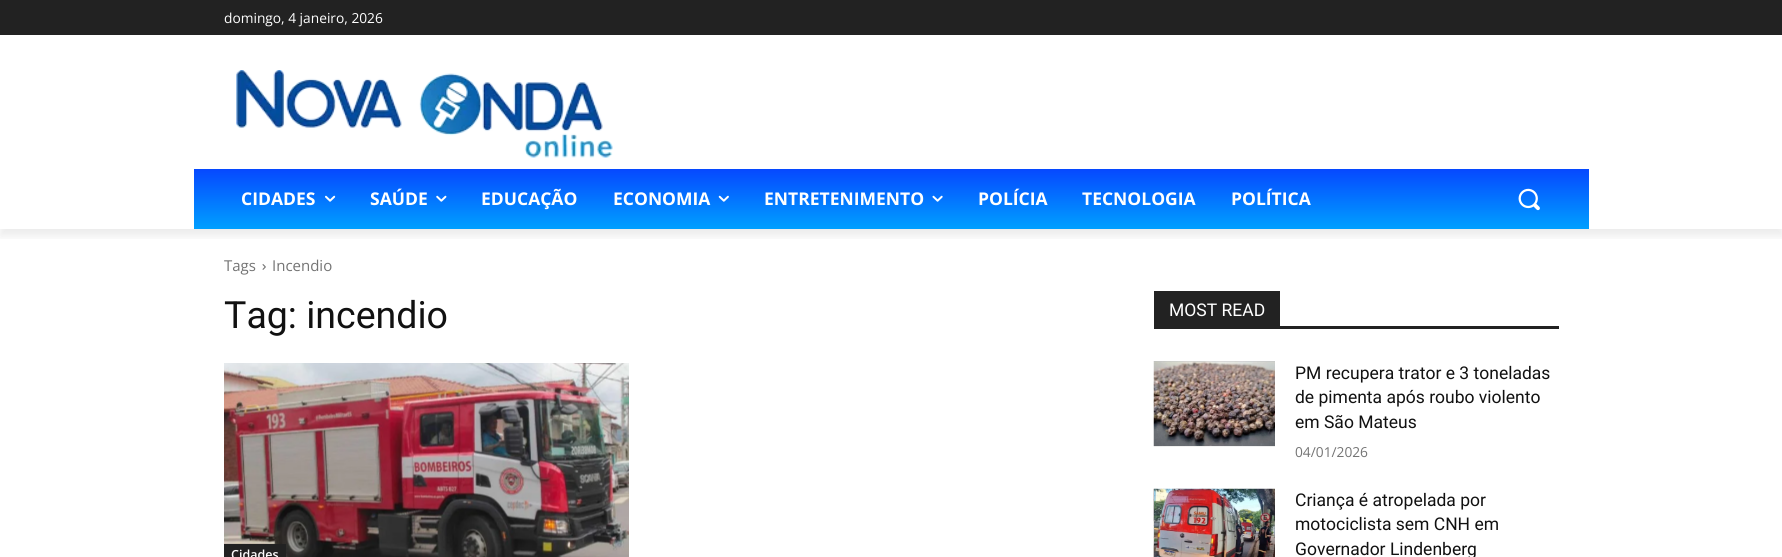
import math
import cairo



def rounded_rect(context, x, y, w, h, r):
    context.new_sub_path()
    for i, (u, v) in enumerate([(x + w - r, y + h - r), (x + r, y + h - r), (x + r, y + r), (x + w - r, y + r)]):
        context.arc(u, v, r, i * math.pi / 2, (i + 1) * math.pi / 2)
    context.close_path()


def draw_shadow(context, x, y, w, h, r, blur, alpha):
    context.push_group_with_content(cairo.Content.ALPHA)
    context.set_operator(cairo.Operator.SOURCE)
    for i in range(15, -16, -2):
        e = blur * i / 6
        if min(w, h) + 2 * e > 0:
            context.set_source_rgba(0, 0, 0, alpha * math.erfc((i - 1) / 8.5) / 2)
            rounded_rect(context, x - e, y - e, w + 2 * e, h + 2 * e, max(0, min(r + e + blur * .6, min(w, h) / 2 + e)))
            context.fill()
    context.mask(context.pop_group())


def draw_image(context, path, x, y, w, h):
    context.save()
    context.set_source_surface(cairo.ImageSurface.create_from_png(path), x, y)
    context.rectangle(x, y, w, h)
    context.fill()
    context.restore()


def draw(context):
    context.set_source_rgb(1, 1, 1)
    context.paint()
    context.set_source_rgb(34 / 255, 34 / 255, 34 / 255)
    context.rectangle(0, 0, 1782, 35)
    context.fill()
    draw_image(context, "images/1.png", 236, 70, 377, 88)
    gradient = cairo.LinearGradient(891, 229, 891, 169)
    gradient.add_color_stop_rgba(0, 0, 160 / 255, 1, 1)
    gradient.add_color_stop_rgba(1, 6 / 255, 72 / 255, 1, 1)
    context.set_source(gradient)
    context.rectangle(194, 169, 1395, 60)
    context.fill()
    context.save()
    context.rectangle(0, 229, 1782, 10)
    context.clip()
    context.set_source_rgb(0, 0, 0)
    draw_shadow(context, 0, 8, 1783, 228, 0, 5, 0.08)
    context.restore()
    draw_image(context, "images/2.png", 325, 195, 11, 7)
    draw_image(context, "images/3.png", 436, 195, 11, 7)
    draw_image(context, "images/4.png", 718, 195, 11, 7)
    draw_image(context, "images/5.png", 932, 195, 11, 7)
    draw_image(context, "images/6.png", 1518, 188, 22, 23)
    draw_image(context, "images/7.png", 262, 264, 4, 6)
    draw_image(context, "images/8.png", 224, 363, 405, 194)
    context.set_source_rgb(34 / 255, 34 / 255, 34 / 255)
    context.rectangle(224, 544, 62, 13)
    context.fill()
    context.rectangle(1154, 326, 405, 3)
    context.fill()
    context.rectangle(1154, 291, 126, 35)
    context.fill()
    draw_image(context, "images/9.png", 1153, 361, 122, 86)
    draw_image(context, "images/10.png", 1153, 488, 122, 69)
    context.select_font_face("Open Sans")
    context.set_font_size(13.75)
    context.set_source_rgb(1, 1, 1)
    context.move_to(224, 23)
    context.show_text("domingo, 4 janeiro, 2026")
    context.select_font_face("Open Sans", cairo.FontSlant.NORMAL, cairo.FontWeight.BOLD)
    context.set_font_size(17.5)
    context.move_to(241, 205)
    context.show_text("CIDADES")
    context.move_to(370, 205)
    context.show_text("SAÚDE")
    context.move_to(481, 205)
    context.show_text("EDUCAÇÃO")
    context.move_to(613, 205)
    context.show_text("ECONOMIA")
    context.move_to(764, 205)
    context.show_text("ENTRETENIMENTO")
    context.move_to(978, 205)
    context.show_text("POLÍCIA")
    context.move_to(1082, 205)
    context.show_text("TECNOLOGIA")
    context.move_to(1231, 205)
    context.show_text("POLÍTICA")
    context.select_font_face("Open Sans")
    context.set_font_size(15)
    context.set_source_rgb(116 / 255, 116 / 255, 116 / 255)
    context.move_to(224, 271)
    context.show_text("Tags")
    context.move_to(272, 271)
    context.show_text("Incendio")
    context.select_font_face("Roboto")
    context.set_font_size(37.5)
    context.set_source_rgb(17 / 255, 17 / 255, 17 / 255)
    context.move_to(224, 328)
    context.show_text("Tag: incendio")
    context.select_font_face("Open Sans SemiBold")
    context.set_font_size(12.5)
    context.set_source_rgb(1, 1, 1)
    context.move_to(231, 559)
    context.show_text("Cidades")
    context.select_font_face("Roboto")
    context.set_font_size(17.5)
    context.move_to(1169, 316)
    context.show_text("MOST READ")
    context.set_source_rgb(17 / 255, 17 / 255, 17 / 255)
    context.move_to(1295, 379)
    context.show_text("PM recupera trator e 3 toneladas")
    context.move_to(1295, 403)
    context.show_text("de pimenta após roubo violento")
    context.move_to(1295, 428)
    context.show_text("em São Mateus")
    context.select_font_face("Open Sans")
    context.set_font_size(13.75)
    context.set_source_rgb(116 / 255, 116 / 255, 116 / 255)
    context.move_to(1295, 457)
    context.show_text("04/01/2026")
    context.select_font_face("Roboto")
    context.set_font_size(17.5)
    context.set_source_rgb(17 / 255, 17 / 255, 17 / 255)
    context.move_to(1295, 506)
    context.show_text("Criança é atropelada por")
    context.move_to(1295, 530)
    context.show_text("motociclista sem CNH em")
    context.move_to(1295, 555)
    context.show_text("Governador Lindenberg")


surface = cairo.ImageSurface(cairo.Format.RGB24, 1782, 557)
context = cairo.Context(surface)
options = cairo.FontOptions()
options.set_hint_metrics(cairo.HintMetrics.OFF)
options.set_hint_style(cairo.HintStyle.NONE)
context.set_font_options(options)
context.set_miter_limit(4)
draw(context)
surface.write_to_png("out.png")
